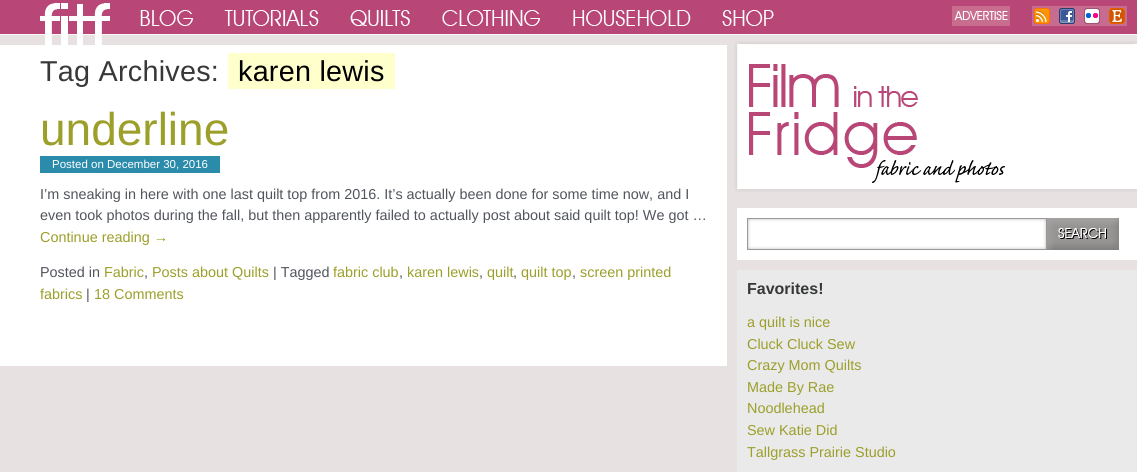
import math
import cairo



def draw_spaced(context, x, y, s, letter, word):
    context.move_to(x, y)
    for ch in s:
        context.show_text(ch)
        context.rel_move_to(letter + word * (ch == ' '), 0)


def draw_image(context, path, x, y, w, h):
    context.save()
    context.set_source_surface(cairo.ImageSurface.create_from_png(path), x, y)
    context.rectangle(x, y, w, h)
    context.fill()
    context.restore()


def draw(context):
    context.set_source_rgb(231 / 255, 225 / 255, 225 / 255)
    context.paint()
    context.set_source_rgb(184 / 255, 70 / 255, 119 / 255)
    context.rectangle(0, 0, 1137, 34)
    context.fill()
    context.set_source_rgb(250 / 255, 247 / 255, 247 / 255)
    context.rectangle(0, 34, 1137, 1)
    context.fill()
    draw_image(context, "images/1.png", 40, 3, 70, 42)
    draw_image(context, "images/2.png", 140, 10, 634, 16)
    context.set_source_rgb(199 / 255, 107 / 255, 144 / 255)
    context.rectangle(1032, 6, 95, 20)
    context.fill()
    draw_image(context, "images/3.png", 952, 6, 58, 20)
    draw_image(context, "images/4.png", 1034, 8, 16, 16)
    draw_image(context, "images/5.png", 1059, 8, 16, 16)
    draw_image(context, "images/6.png", 1084, 8, 16, 16)
    draw_image(context, "images/7.png", 1109, 8, 16, 16)
    context.set_source_rgb(1, 1, 1)
    context.rectangle(0, 45, 727, 321)
    context.fill()
    context.set_source_rgb(1, 1, 204 / 255)
    context.rectangle(228, 53, 167, 36)
    context.fill()
    context.set_source_rgb(43 / 255, 139 / 255, 171 / 255)
    context.rectangle(40, 156, 180, 17)
    context.fill()
    draw_image(context, "images/8.png", 734, 41, 403, 151)
    draw_image(context, "images/9.png", 749, 64, 256, 119)
    context.set_source_rgb(1, 1, 1)
    context.rectangle(737, 208, 400, 52)
    context.fill()
    draw_image(context, "images/10.png", 747, 218, 300, 32)
    draw_image(context, "images/11.png", 1047, 218, 72, 32)
    context.set_source_rgb(234 / 255, 234 / 255, 234 / 255)
    context.rectangle(737, 270, 400, 202)
    context.fill()
    context.select_font_face("Liberation Sans")
    context.set_font_size(28.75)
    context.set_source_rgb(55 / 255, 56 / 255, 57 / 255)
    draw_spaced(context, 40, 81, "Tag Archives:", 0.25, 0)
    context.set_source_rgb(0, 0, 0)
    draw_spaced(context, 238, 81, "karen lewis", 0.25, 0)
    context.set_font_size(46)
    context.set_source_rgb(156 / 255, 159 / 255, 42 / 255)
    context.move_to(40, 145)
    context.show_text("underline")
    context.set_font_size(11.5)
    context.set_source_rgb(1, 1, 1)
    context.move_to(52, 168)
    context.show_text("Posted on December 30, 2016")
    context.set_font_size(14.4)
    context.set_source_rgb(81 / 255, 85 / 255, 92 / 255)
    context.move_to(40, 199)
    context.show_text("I’m sneaking in here with one last quilt top from 2016. It’s actually been done for some time now, and I")
    context.move_to(40, 220)
    context.show_text("even took photos during the fall, but then apparently failed to actually post about said quilt top! We got …")
    context.set_source_rgb(156 / 255, 159 / 255, 42 / 255)
    context.move_to(40, 242)
    context.show_text("Continue reading →")
    context.set_source_rgb(81 / 255, 85 / 255, 92 / 255)
    context.move_to(40, 277)
    context.show_text("Posted in")
    context.set_source_rgb(156 / 255, 159 / 255, 42 / 255)
    context.move_to(104, 277)
    context.show_text("Fabric")
    context.set_source_rgb(81 / 255, 85 / 255, 92 / 255)
    context.move_to(144, 277)
    context.show_text(",")
    context.set_source_rgb(156 / 255, 159 / 255, 42 / 255)
    context.move_to(152, 277)
    context.show_text("Posts about Quilts")
    context.set_source_rgb(81 / 255, 85 / 255, 92 / 255)
    context.move_to(273, 277)
    context.show_text("| Tagged")
    context.set_source_rgb(156 / 255, 159 / 255, 42 / 255)
    context.move_to(333, 277)
    context.show_text("fabric club")
    context.set_source_rgb(81 / 255, 85 / 255, 92 / 255)
    context.move_to(399, 277)
    context.show_text(",")
    context.set_source_rgb(156 / 255, 159 / 255, 42 / 255)
    context.move_to(407, 277)
    context.show_text("karen lewis")
    context.set_source_rgb(81 / 255, 85 / 255, 92 / 255)
    context.move_to(479, 277)
    context.show_text(",")
    context.set_source_rgb(156 / 255, 159 / 255, 42 / 255)
    context.move_to(487, 277)
    context.show_text("quilt")
    context.set_source_rgb(81 / 255, 85 / 255, 92 / 255)
    context.move_to(513, 277)
    context.show_text(",")
    context.set_source_rgb(156 / 255, 159 / 255, 42 / 255)
    context.move_to(521, 277)
    context.show_text("quilt top")
    context.set_source_rgb(81 / 255, 85 / 255, 92 / 255)
    context.move_to(572, 277)
    context.show_text(",")
    context.set_source_rgb(156 / 255, 159 / 255, 42 / 255)
    context.move_to(580, 277)
    context.show_text("screen printed")
    context.move_to(40, 299)
    context.show_text("fabrics")
    context.set_source_rgb(81 / 255, 85 / 255, 92 / 255)
    context.move_to(86, 299)
    context.show_text("|")
    context.set_source_rgb(156 / 255, 159 / 255, 42 / 255)
    context.move_to(94, 299)
    context.show_text("18 Comments")
    context.select_font_face("Liberation Sans", cairo.FontSlant.NORMAL, cairo.FontWeight.BOLD)
    context.set_font_size(16)
    context.set_source_rgb(55 / 255, 56 / 255, 57 / 255)
    context.move_to(747, 294)
    context.show_text("Favorites!")
    context.select_font_face("Liberation Sans")
    context.set_font_size(14.4)
    context.set_source_rgb(156 / 255, 159 / 255, 42 / 255)
    context.move_to(747, 327)
    context.show_text("a quilt is nice")
    context.move_to(747, 349)
    context.show_text("Cluck Cluck Sew")
    context.move_to(747, 370)
    context.show_text("Crazy Mom Quilts")
    context.move_to(747, 392)
    context.show_text("Made By Rae")
    context.move_to(747, 413)
    context.show_text("Noodlehead")
    context.move_to(747, 435)
    context.show_text("Sew Katie Did")
    context.move_to(747, 457)
    context.show_text("Tallgrass Prairie Studio")


surface = cairo.ImageSurface(cairo.Format.RGB24, 1137, 472)
context = cairo.Context(surface)
options = cairo.FontOptions()
options.set_hint_metrics(cairo.HintMetrics.OFF)
options.set_hint_style(cairo.HintStyle.NONE)
context.set_font_options(options)
context.set_miter_limit(4)
draw(context)
surface.write_to_png("out.png")
